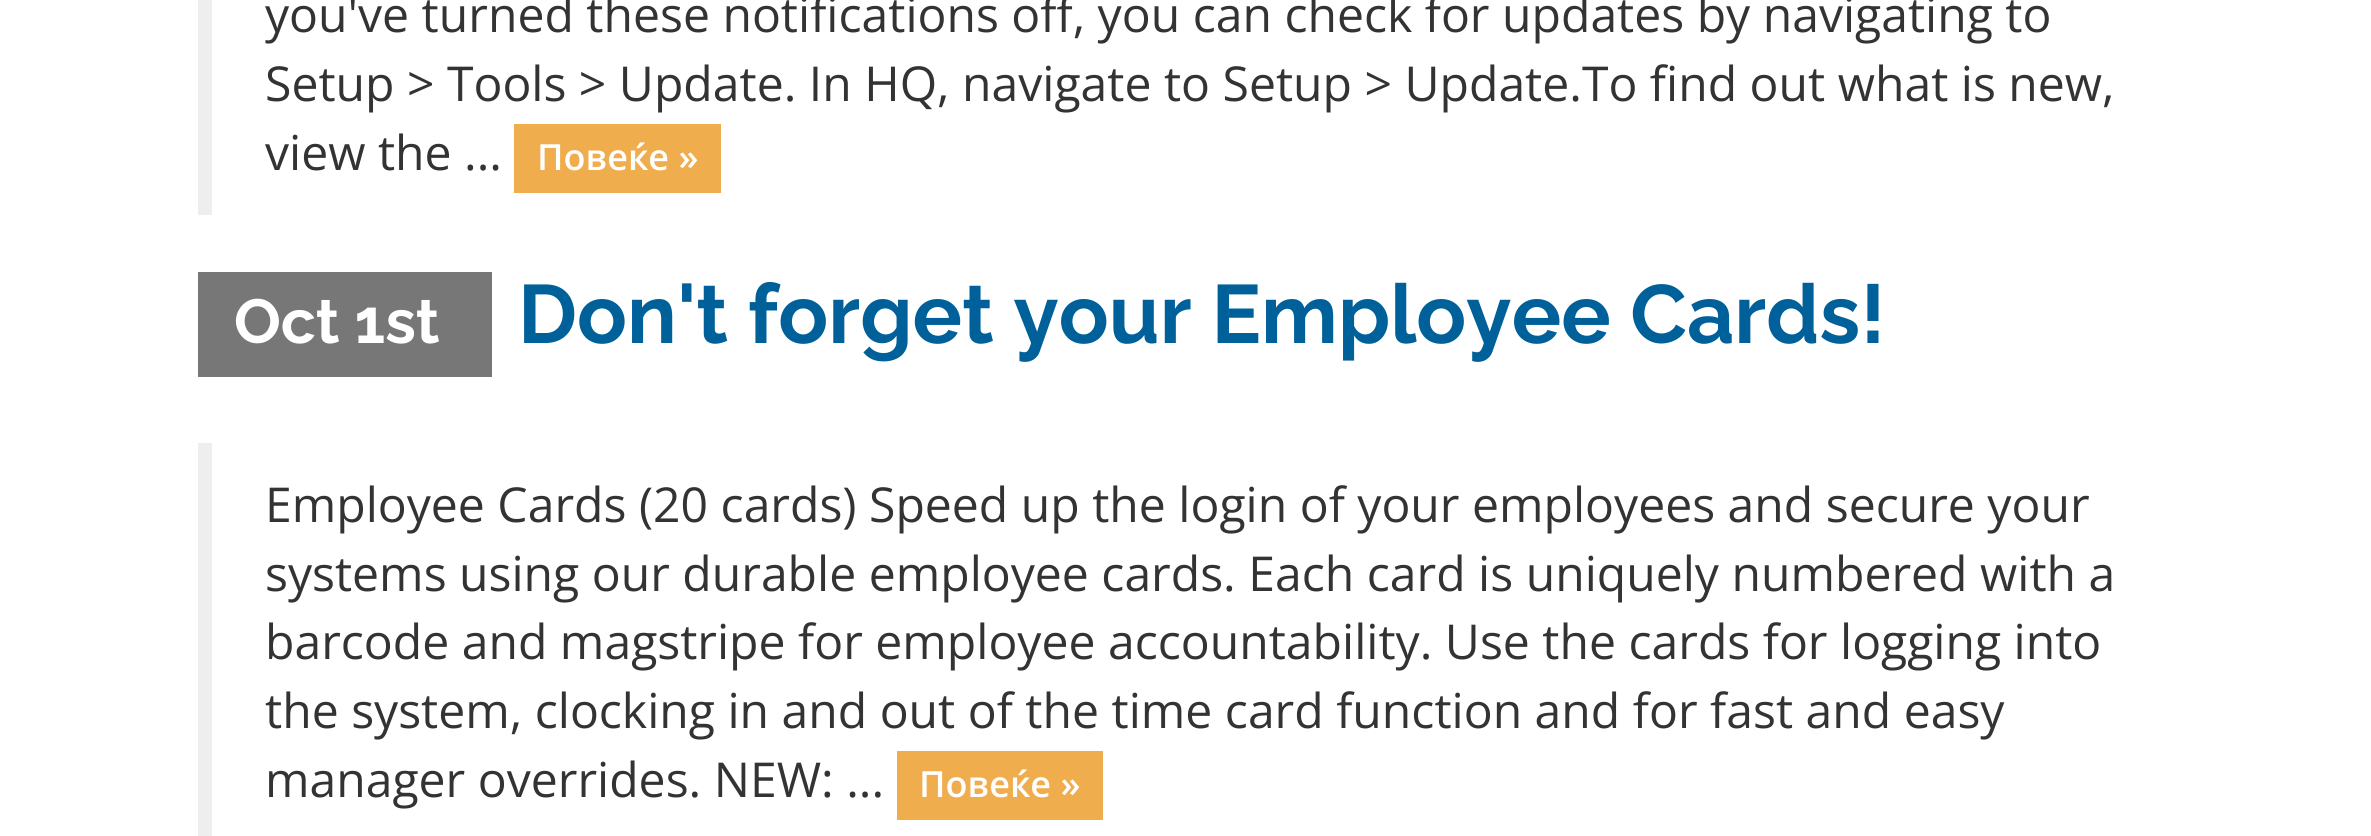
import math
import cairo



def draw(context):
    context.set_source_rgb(1, 1, 1)
    context.paint()
    context.set_source_rgb(238 / 255, 238 / 255, 238 / 255)
    context.rectangle(198, 0, 14, 215)
    context.fill()
    context.set_source_rgb(240 / 255, 173 / 255, 78 / 255)
    context.rectangle(514, 124, 207, 69)
    context.fill()
    context.set_source_rgb(119 / 255, 119 / 255, 119 / 255)
    context.rectangle(198, 272, 294, 105)
    context.fill()
    context.set_source_rgb(238 / 255, 238 / 255, 238 / 255)
    context.rectangle(198, 443, 14, 393)
    context.fill()
    context.set_source_rgb(240 / 255, 173 / 255, 78 / 255)
    context.rectangle(897, 751, 206, 69)
    context.fill()
    context.select_font_face("Open Sans")
    context.set_font_size(48.1)
    context.set_source_rgb(51 / 255, 51 / 255, 51 / 255)
    context.move_to(265, 32)
    context.show_text("you've turned these notifications off, you can check for updates by navigating to")
    context.move_to(265, 101)
    context.show_text("Setup > Tools > Update. In HQ, navigate to Setup > Update.To find out what is new,")
    context.move_to(265, 170)
    context.show_text("view the ...")
    context.select_font_face("Open Sans SemiBold")
    context.set_font_size(36)
    context.set_source_rgb(1, 1, 1)
    context.move_to(537, 170)
    context.show_text("Повеќе »")
    context.select_font_face("Raleway", cairo.FontSlant.NORMAL, cairo.FontWeight.BOLD)
    context.set_font_size(62)
    context.move_to(234, 343)
    context.show_text("Oct 1st")
    context.set_font_size(82.5)
    context.set_source_rgb(0, 96 / 255, 154 / 255)
    context.move_to(518, 343)
    context.show_text("Don't forget your Employee Cards!")
    context.select_font_face("Open Sans")
    context.set_font_size(48.1)
    context.set_source_rgb(51 / 255, 51 / 255, 51 / 255)
    context.move_to(265, 522)
    context.show_text("Employee Cards (20 cards) Speed up the login of your employees and secure your")
    context.move_to(265, 591)
    context.show_text("systems using our durable employee cards. Each card is uniquely numbered with a")
    context.move_to(265, 659)
    context.show_text("barcode and magstripe for employee accountability. Use the cards for logging into")
    context.move_to(265, 728)
    context.show_text("the system, clocking in and out of the time card function and for fast and easy")
    context.move_to(265, 797)
    context.show_text("manager overrides. NEW: ...")
    context.select_font_face("Open Sans SemiBold")
    context.set_font_size(36)
    context.set_source_rgb(1, 1, 1)
    context.move_to(919, 797)
    context.show_text("Повеќе »")


surface = cairo.ImageSurface(cairo.Format.RGB24, 2371, 836)
context = cairo.Context(surface)
options = cairo.FontOptions()
options.set_hint_metrics(cairo.HintMetrics.OFF)
options.set_hint_style(cairo.HintStyle.NONE)
context.set_font_options(options)
context.set_miter_limit(4)
draw(context)
surface.write_to_png("out.png")
